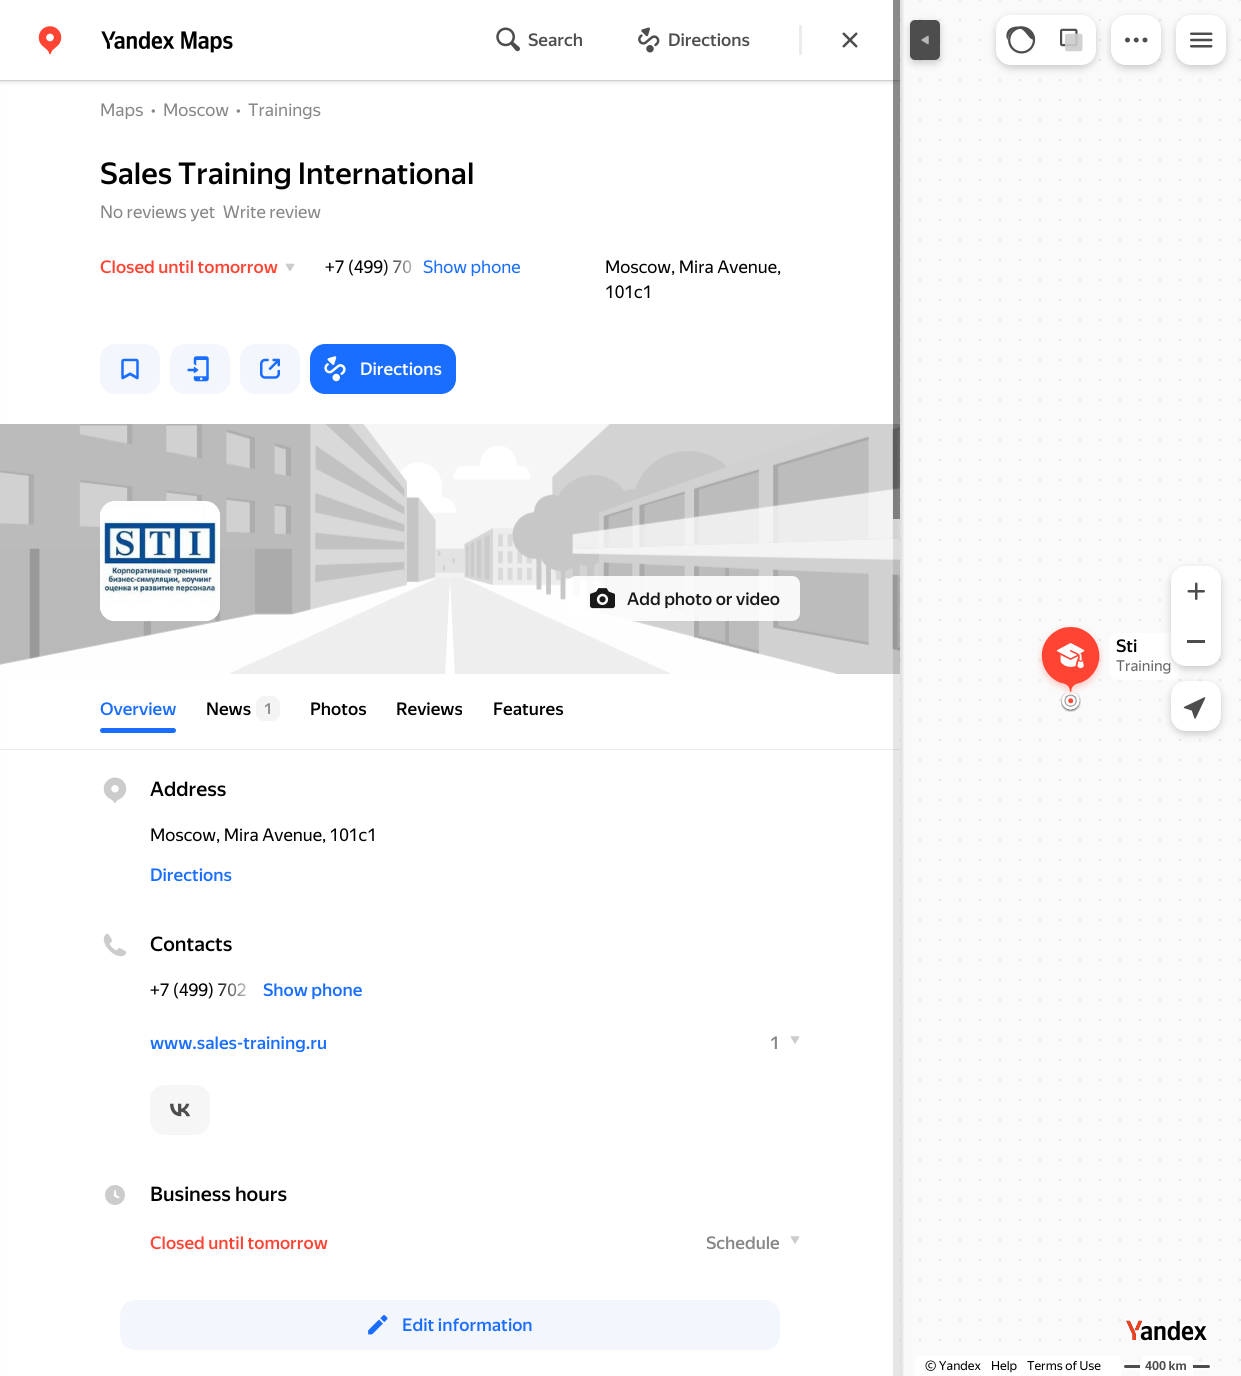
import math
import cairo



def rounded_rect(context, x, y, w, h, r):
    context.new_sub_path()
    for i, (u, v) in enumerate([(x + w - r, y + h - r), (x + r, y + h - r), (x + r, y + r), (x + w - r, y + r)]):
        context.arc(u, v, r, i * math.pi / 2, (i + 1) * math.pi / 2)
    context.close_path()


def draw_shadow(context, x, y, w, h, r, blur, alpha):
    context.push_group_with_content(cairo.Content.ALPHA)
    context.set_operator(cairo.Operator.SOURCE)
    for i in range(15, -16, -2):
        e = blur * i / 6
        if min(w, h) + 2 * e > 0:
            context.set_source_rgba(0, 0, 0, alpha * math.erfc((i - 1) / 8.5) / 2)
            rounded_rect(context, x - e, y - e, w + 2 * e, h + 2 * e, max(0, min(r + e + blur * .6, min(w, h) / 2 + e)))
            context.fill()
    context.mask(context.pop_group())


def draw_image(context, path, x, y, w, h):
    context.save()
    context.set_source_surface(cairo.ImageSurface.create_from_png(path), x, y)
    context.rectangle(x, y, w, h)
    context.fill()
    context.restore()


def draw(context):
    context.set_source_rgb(1, 1, 1)
    context.paint()
    draw_image(context, "images/1.png", 900, 0, 341, 1376)
    context.set_source_rgb(0, 0, 0)
    draw_shadow(context, 3, 0, 900, 1376, 0, 1, 0.1)
    context.set_source_rgb(1, 1, 1)
    context.rectangle(2, 81, 898, 1295)
    context.fill()
    context.set_source_rgb(235 / 255, 235 / 255, 235 / 255)
    context.rectangle(0, 80, 900, 1)
    context.fill()
    context.save()
    context.rectangle(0, 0, 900, 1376)
    context.clip()
    context.set_source_rgb(0, 0, 0)
    draw_shadow(context, 0, 76, 900, 5, 0, 2.5, 0.2)
    context.restore()
    context.set_source_rgb(0, 0, 0)
    draw_shadow(context, 910, 23, 30, 40, 5, 4, 0.2)
    context.set_source_rgb(1, 1, 1)
    context.rectangle(0, 0, 900, 80)
    context.fill()
    draw_image(context, "images/2.png", 38, 26, 24, 29)
    draw_image(context, "images/3.png", 101, 31, 132, 22)
    draw_image(context, "images/4.png", 496, 27, 24, 25)
    draw_image(context, "images/5.png", 638, 27, 22, 26)
    context.set_source_rgb(235 / 255, 235 / 255, 235 / 255)
    context.rectangle(799, 25, 3, 30)
    context.fill()
    draw_image(context, "images/6.png", 842, 32, 16, 16)
    draw_image(context, "images/7.png", 285, 263, 10, 8)
    context.set_source_rgb(243 / 255, 246 / 255, 252 / 255)
    rounded_rect(context, 100, 344, 60, 50, 15)
    context.fill()
    draw_image(context, "images/8.png", 121, 358, 18, 22)
    rounded_rect(context, 170, 344, 60, 50, 15)
    context.fill()
    draw_image(context, "images/9.png", 187, 356, 22, 26)
    rounded_rect(context, 240, 344, 60, 50, 15)
    context.fill()
    draw_image(context, "images/10.png", 260, 358, 20, 21)
    context.set_source_rgb(25 / 255, 109 / 255, 1)
    rounded_rect(context, 310, 344, 146, 50, 15)
    context.fill()
    draw_image(context, "images/11.png", 324, 356, 22, 26)
    draw_image(context, "images/12.png", 0, 424, 900, 250)
    context.set_source_rgb(1, 1, 1)
    rounded_rect(context, 100, 501, 120, 120, 15)
    context.fill()
    draw_image(context, "images/13.png", 100, 502, 120, 120)
    context.set_source_rgba(1, 1, 1, 0.9)
    rounded_rect(context, 568, 576, 232, 45, 8)
    context.fill()
    draw_image(context, "images/14.png", 590, 588, 25, 21)
    context.set_source_rgb(244 / 255, 244 / 255, 244 / 255)
    rounded_rect(context, 256, 696, 24, 25, 8)
    context.fill()
    context.set_source_rgb(25 / 255, 109 / 255, 1)
    rounded_rect(context, 100, 728, 76, 5, 2.5)
    context.fill()
    context.set_source_rgb(235 / 255, 235 / 255, 235 / 255)
    context.rectangle(0, 749, 900, 1)
    context.fill()
    draw_image(context, "images/15.png", 103, 777, 24, 26)
    draw_image(context, "images/16.png", 103, 933, 24, 24)
    draw_image(context, "images/17.png", 790, 1036, 10, 8)
    context.set_source_rgb(246 / 255, 246 / 255, 246 / 255)
    rounded_rect(context, 150, 1085, 60, 50, 15)
    context.fill()
    draw_image(context, "images/18.png", 170, 1103, 20, 14)
    draw_image(context, "images/19.png", 105, 1185, 20, 20)
    draw_image(context, "images/17.png", 790, 1236, 10, 8)
    context.set_source_rgb(243 / 255, 246 / 255, 252 / 255)
    rounded_rect(context, 120, 1300, 660, 50, 15)
    context.fill()
    draw_image(context, "images/20.png", 368, 1315, 20, 20)
    context.set_source_rgba(0, 0, 0, 0.1)
    context.rectangle(893, 0, 7, 1376)
    context.fill()
    context.set_source_rgba(0, 0, 0, 0.4)
    context.rectangle(893, 0, 7, 519)
    context.fill()
    context.set_source_rgb(77 / 255, 77 / 255, 77 / 255)
    rounded_rect(context, 910, 20, 30, 40, 5)
    context.fill()
    draw_image(context, "images/21.png", 921, 35, 8, 10)
    context.set_source_rgb(0, 0, 0)
    draw_shadow(context, 996, 18, 100, 50, 15, 4, 0.2)
    context.set_source_rgb(1, 1, 1)
    context.new_path()
    context.move_to(1011, 15)
    context.line_to(1046, 15)
    context.line_to(1046, 65)
    context.line_to(1011, 65)
    context.curve_to(1002.5, 65, 996, 58.5, 996, 50)
    context.line_to(996, 30)
    context.curve_to(996, 21.5, 1002.5, 15, 1011, 15)
    context.close_path()
    context.fill()
    draw_image(context, "images/22.png", 1006, 26, 30, 28)
    context.new_path()
    context.move_to(1046, 15)
    context.line_to(1081, 15)
    context.curve_to(1089.5, 15, 1096, 21.5, 1096, 30)
    context.line_to(1096, 50)
    context.curve_to(1096, 58.5, 1089.5, 65, 1081, 65)
    context.line_to(1046, 65)
    context.close_path()
    context.fill()
    draw_image(context, "images/23.png", 1060, 28, 23, 24)
    context.set_source_rgb(0, 0, 0)
    draw_shadow(context, 1111, 18, 50, 50, 15, 4, 0.2)
    context.set_source_rgb(1, 1, 1)
    rounded_rect(context, 1111, 15, 50, 50, 15)
    context.fill()
    draw_image(context, "images/24.png", 1125, 37, 23, 6)
    context.set_source_rgb(0, 0, 0)
    draw_shadow(context, 1176, 18, 50, 50, 15, 4, 0.2)
    context.set_source_rgb(1, 1, 1)
    rounded_rect(context, 1176, 15, 50, 50, 15)
    context.fill()
    draw_image(context, "images/25.png", 1190, 32, 23, 16)
    context.set_source_rgba(1, 1, 1, 0.9)
    rounded_rect(context, 1109, 633, 70, 47, 8)
    context.fill()
    context.set_source_rgb(0, 0, 0)
    draw_shadow(context, 1171, 569, 50, 100, 15, 4, 0.2)
    context.set_source_rgb(1, 1, 1)
    context.new_path()
    context.move_to(1186, 566)
    context.line_to(1206, 566)
    context.curve_to(1214.5, 566, 1221, 572.5, 1221, 581)
    context.line_to(1221, 616)
    context.line_to(1171, 616)
    context.line_to(1171, 581)
    context.curve_to(1171, 572.5, 1177.5, 566, 1186, 566)
    context.close_path()
    context.fill()
    draw_image(context, "images/26.png", 1187, 582, 18, 18)
    context.new_path()
    context.move_to(1171, 616)
    context.line_to(1221, 616)
    context.line_to(1221, 651)
    context.curve_to(1221, 659.5, 1214.5, 666, 1206, 666)
    context.line_to(1186, 666)
    context.curve_to(1177.5, 666, 1171, 659.5, 1171, 651)
    context.close_path()
    context.fill()
    context.set_source_rgb(77 / 255, 77 / 255, 77 / 255)
    context.rectangle(1187, 640, 18, 3)
    context.fill()
    context.set_source_rgb(0, 0, 0)
    draw_shadow(context, 1171, 684, 50, 50, 15, 4, 0.2)
    context.set_source_rgb(1, 1, 1)
    rounded_rect(context, 1171, 681, 50, 50, 15)
    context.fill()
    draw_image(context, "images/27.png", 1183, 697, 23, 22)
    draw_image(context, "images/28.png", 1126, 1319, 81, 23)
    context.new_path()
    context.move_to(920, 1356)
    context.line_to(1116, 1356)
    context.curve_to(1119, 1356, 1121, 1358, 1121, 1361)
    context.line_to(1121, 1376)
    context.line_to(915, 1376)
    context.line_to(915, 1361)
    context.curve_to(915, 1358, 917, 1356, 920, 1356)
    context.close_path()
    context.fill()
    context.set_source_rgb(253 / 255, 253 / 255, 253 / 255)
    rounded_rect(context, 1121, 1363, 92, 7, 3.5)
    context.fill()
    context.set_source_rgb(77 / 255, 77 / 255, 77 / 255)
    rounded_rect(context, 1124, 1365, 86, 3, 1.5)
    context.fill()
    context.set_source_rgb(1, 1, 1)
    context.new_path()
    context.move_to(1145, 1356)
    context.line_to(1188, 1356)
    context.curve_to(1191, 1356, 1193, 1358, 1193, 1361)
    context.line_to(1193, 1376)
    context.line_to(1140, 1376)
    context.line_to(1140, 1361)
    context.curve_to(1140, 1358, 1142, 1356, 1145, 1356)
    context.close_path()
    context.fill()
    draw_image(context, "images/31.png", 1061, 692, 20, 20)
    draw_image(context, "images/32.png", 1061, 693, 20, 19)
    draw_image(context, "images/33.png", 1061, 693, 20, 19)
    draw_image(context, "images/34.png", 1061, 693, 20, 19)
    draw_image(context, "images/35.png", 1061, 693, 20, 19)
    draw_image(context, "images/29.png", 1037, 625, 67, 81)
    draw_image(context, "images/30.png", 1056, 643, 29, 26)
    context.select_font_face("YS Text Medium")
    context.set_font_size(17.5)
    context.set_source_rgb(77 / 255, 77 / 255, 77 / 255)
    context.move_to(528, 46)
    context.show_text("Search")
    context.move_to(668, 46)
    context.show_text("Directions")
    context.select_font_face("YS Text")
    context.set_source_rgb(135 / 255, 135 / 255, 135 / 255)
    context.move_to(100, 116)
    context.show_text("Maps")
    context.move_to(151, 116)
    context.show_text("•")
    context.move_to(163, 116)
    context.show_text("Moscow")
    context.move_to(236, 116)
    context.show_text("•")
    context.move_to(248, 116)
    context.show_text("Trainings")
    context.select_font_face("YS Text Medium")
    context.set_font_size(30)
    context.set_source_rgb(0, 0, 0)
    context.move_to(100, 184)
    context.show_text("Sales Training International")
    context.select_font_face("YS Text")
    context.set_font_size(17.5)
    context.set_source_rgb(135 / 255, 135 / 255, 135 / 255)
    context.move_to(100, 218)
    context.show_text("No reviews yet")
    context.move_to(223, 218)
    context.show_text("Write review")
    context.select_font_face("YS Text Medium")
    context.set_source_rgb(1, 68 / 255, 51 / 255)
    context.move_to(100, 273)
    context.show_text("Closed until tomorrow")
    context.select_font_face("YS Text")
    context.set_source_rgb(0, 0, 0)
    context.move_to(325, 273)
    context.show_text("+7 (499) 70")
    gradient = cairo.LinearGradient(383, 266, 423, 266)
    gradient.add_color_stop_rgba(0, 1, 1, 1, 0)
    gradient.add_color_stop_rgba(1, 1, 1, 1, 1)
    context.set_source(gradient)
    context.rectangle(384, 260, 28, 15)
    context.fill()
    context.set_source_rgb(25 / 255, 109 / 255, 1)
    context.move_to(423, 273)
    context.show_text("Show phone")
    context.set_source_rgb(0, 0, 0)
    context.move_to(605, 273)
    context.show_text("Moscow, Mira Avenue,")
    context.move_to(605, 298)
    context.show_text("101с1")
    context.select_font_face("YS Text Medium")
    context.set_source_rgb(1, 1, 1)
    context.move_to(360, 375)
    context.show_text("Directions")
    context.set_source_rgb(25 / 255, 25 / 255, 25 / 255)
    context.move_to(627, 605)
    context.show_text("Add photo or video")
    context.set_source_rgb(25 / 255, 109 / 255, 1)
    context.move_to(100, 715)
    context.show_text("Overview")
    context.set_source_rgb(0, 0, 0)
    context.move_to(206, 715)
    context.show_text("News")
    context.set_font_size(15)
    context.set_source_rgb(135 / 255, 135 / 255, 135 / 255)
    context.move_to(264, 714)
    context.show_text("1")
    context.set_font_size(17.5)
    context.set_source_rgb(0, 0, 0)
    context.move_to(310, 715)
    context.show_text("Photos")
    context.move_to(396, 715)
    context.show_text("Reviews")
    context.move_to(493, 715)
    context.show_text("Features")
    context.set_font_size(20)
    context.move_to(150, 796)
    context.show_text("Address")
    context.select_font_face("YS Text")
    context.set_font_size(17.5)
    context.move_to(150, 841)
    context.show_text("Moscow, Mira Avenue, 101с1")
    context.select_font_face("YS Text Medium")
    context.set_source_rgb(25 / 255, 109 / 255, 1)
    context.move_to(150, 881)
    context.show_text("Directions")
    context.set_font_size(20)
    context.set_source_rgb(0, 0, 0)
    context.move_to(150, 951)
    context.show_text("Contacts")
    context.select_font_face("YS Text")
    context.set_font_size(17.5)
    context.move_to(150, 996)
    context.show_text("+7 (499) 702")
    gradient = cairo.LinearGradient(216, 990, 256, 990)
    gradient.add_color_stop_rgba(0, 1, 1, 1, 0)
    gradient.add_color_stop_rgba(1, 1, 1, 1, 1)
    context.set_source(gradient)
    context.rectangle(218, 983, 28, 14)
    context.fill()
    context.select_font_face("YS Text Medium")
    context.set_source_rgb(25 / 255, 109 / 255, 1)
    context.move_to(263, 996)
    context.show_text("Show phone")
    context.move_to(150, 1049)
    context.show_text("www.sales-training.ru")
    context.set_source_rgb(135 / 255, 135 / 255, 135 / 255)
    context.move_to(770, 1049)
    context.show_text("1")
    context.set_font_size(20)
    context.set_source_rgb(0, 0, 0)
    context.move_to(150, 1201)
    context.show_text("Business hours")
    context.set_font_size(17.5)
    context.set_source_rgb(1, 68 / 255, 51 / 255)
    context.move_to(150, 1249)
    context.show_text("Closed until tomorrow")
    context.set_source_rgb(135 / 255, 135 / 255, 135 / 255)
    context.move_to(706, 1249)
    context.show_text("Schedule")
    context.set_source_rgb(25 / 255, 109 / 255, 1)
    context.move_to(402, 1331)
    context.show_text("Edit information")
    context.select_font_face("YS Text")
    context.set_font_size(12.5)
    context.set_source_rgb(0, 0, 0)
    context.move_to(925, 1370)
    context.show_text("© Yandex")
    context.move_to(991, 1370)
    context.show_text("Help")
    context.move_to(1027, 1370)
    context.show_text("Terms of Use")
    context.select_font_face("YS Text", cairo.FontSlant.NORMAL, cairo.FontWeight.BOLD)
    context.set_source_rgb(77 / 255, 77 / 255, 77 / 255)
    context.move_to(1145, 1370)
    context.show_text("400 km")
    context.select_font_face("YS Text Medium")
    context.set_font_size(17.5)
    context.set_source_rgb(0, 0, 0)
    context.move_to(1116, 652)
    context.show_text("Sti")
    context.select_font_face("YS Text")
    context.set_font_size(15)
    context.set_source_rgb(102 / 255, 102 / 255, 102 / 255)
    context.move_to(1116, 671)
    context.show_text("Training")


surface = cairo.ImageSurface(cairo.Format.RGB24, 1241, 1376)
context = cairo.Context(surface)
options = cairo.FontOptions()
options.set_hint_metrics(cairo.HintMetrics.OFF)
options.set_hint_style(cairo.HintStyle.NONE)
context.set_font_options(options)
context.set_miter_limit(4)
draw(context)
surface.write_to_png("out.png")
